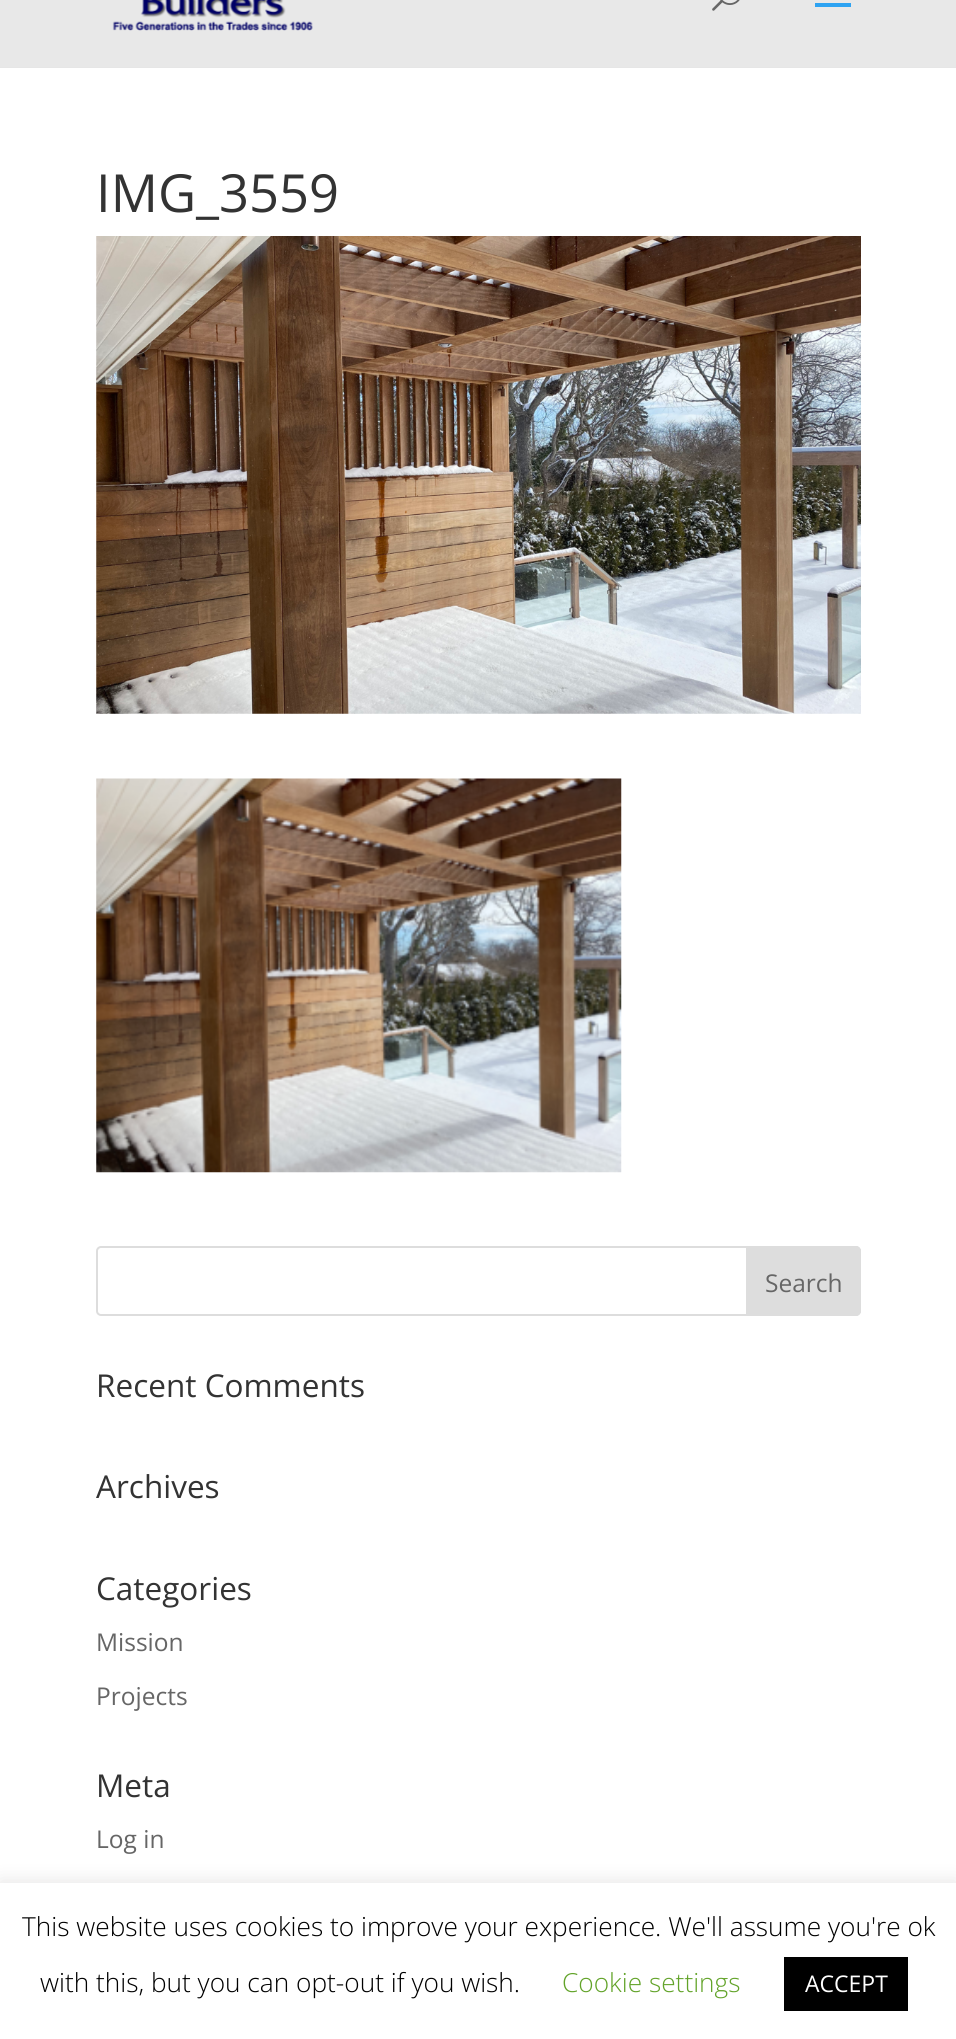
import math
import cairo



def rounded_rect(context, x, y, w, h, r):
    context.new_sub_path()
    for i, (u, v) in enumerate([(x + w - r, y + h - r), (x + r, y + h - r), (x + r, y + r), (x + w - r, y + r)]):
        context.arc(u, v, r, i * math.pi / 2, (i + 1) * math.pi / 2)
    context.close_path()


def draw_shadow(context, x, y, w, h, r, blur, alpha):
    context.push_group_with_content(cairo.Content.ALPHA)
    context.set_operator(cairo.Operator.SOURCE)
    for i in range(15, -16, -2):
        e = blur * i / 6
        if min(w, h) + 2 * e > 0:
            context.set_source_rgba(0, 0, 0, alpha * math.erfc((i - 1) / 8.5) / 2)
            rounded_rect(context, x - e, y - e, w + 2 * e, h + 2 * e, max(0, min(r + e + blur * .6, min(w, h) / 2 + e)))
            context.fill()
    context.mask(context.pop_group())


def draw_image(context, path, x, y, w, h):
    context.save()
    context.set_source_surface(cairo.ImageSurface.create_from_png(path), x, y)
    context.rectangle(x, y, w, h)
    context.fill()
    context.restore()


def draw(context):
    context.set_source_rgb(1, 1, 1)
    context.paint()
    context.set_source_rgb(230 / 255, 230 / 255, 230 / 255)
    context.rectangle(0, 67, 956, 1)
    context.fill()
    context.set_source_rgb(232 / 255, 232 / 255, 232 / 255)
    context.rectangle(0, 0, 956, 67)
    context.fill()
    draw_image(context, "images/1.png", 112, 0, 201, 31)
    draw_image(context, "images/2.png", 712, 0, 28, 11)
    context.set_source_rgb(46 / 255, 163 / 255, 242 / 255)
    context.rectangle(815, 3, 36, 4)
    context.fill()
    draw_image(context, "images/3.png", 96, 236, 765, 478)
    draw_image(context, "images/4.png", 96, 778, 526, 395)
    rounded_rect(context, 97, 1247, 763, 68, 4)
    context.set_source_rgb(221 / 255, 221 / 255, 221 / 255)
    context.stroke()
    context.new_path()
    context.move_to(747, 1247)
    context.line_to(856, 1247)
    context.curve_to(858, 1247, 860, 1249, 860, 1251)
    context.line_to(860, 1311)
    context.curve_to(860, 1313, 858, 1315, 856, 1315)
    context.line_to(747, 1315)
    context.close_path()
    context.fill_preserve()
    context.stroke()
    context.set_source_rgb(172 / 255, 171 / 255, 171 / 255)
    draw_shadow(context, 0, 1881, 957, 158, 0, 9, 0.3)
    context.set_source_rgb(1, 1, 1)
    context.rectangle(0, 1883, 956, 156)
    context.fill()
    context.set_source_rgb(0, 0, 0)
    context.rectangle(784, 1957, 124, 54)
    context.fill()
    context.select_font_face("Open Sans")
    context.set_font_size(52.5)
    context.set_source_rgb(51 / 255, 51 / 255, 51 / 255)
    context.move_to(96, 212)
    context.show_text("IMG_3559")
    context.set_font_size(24.5)
    context.set_source_rgb(102 / 255, 102 / 255, 102 / 255)
    context.move_to(765, 1292)
    context.show_text("Search")
    context.set_font_size(31.5)
    context.set_source_rgb(51 / 255, 51 / 255, 51 / 255)
    context.move_to(96, 1397)
    context.show_text("Recent Comments")
    context.move_to(96, 1498)
    context.show_text("Archives")
    context.move_to(96, 1600)
    context.show_text("Categories")
    context.set_font_size(24.5)
    context.set_source_rgb(102 / 255, 102 / 255, 102 / 255)
    context.move_to(96, 1651)
    context.show_text("Mission")
    context.move_to(96, 1705)
    context.show_text("Projects")
    context.set_font_size(31.5)
    context.set_source_rgb(51 / 255, 51 / 255, 51 / 255)
    context.move_to(96, 1797)
    context.show_text("Meta")
    context.set_font_size(24.5)
    context.set_source_rgb(102 / 255, 102 / 255, 102 / 255)
    context.move_to(96, 1848)
    context.show_text("Log in")
    context.select_font_face("Open Sans Light")
    context.set_font_size(26.25)
    context.set_source_rgb(0, 0, 0)
    context.move_to(22, 1936)
    context.show_text("This website uses cookies to improve your experience. We'll assume you're ok")
    context.move_to(40, 1992)
    context.show_text("with this, but you can opt-out if you wish.")
    context.set_source_rgb(98 / 255, 163 / 255, 41 / 255)
    context.move_to(562, 1992)
    context.show_text("Cookie settings")
    context.select_font_face("Open Sans")
    context.set_font_size(23)
    context.set_source_rgb(1, 1, 1)
    context.move_to(805, 1992)
    context.show_text("ACCEPT")


surface = cairo.ImageSurface(cairo.Format.RGB24, 956, 2039)
context = cairo.Context(surface)
options = cairo.FontOptions()
options.set_hint_metrics(cairo.HintMetrics.OFF)
options.set_hint_style(cairo.HintStyle.NONE)
context.set_font_options(options)
context.set_miter_limit(4)
draw(context)
surface.write_to_png("out.png")
